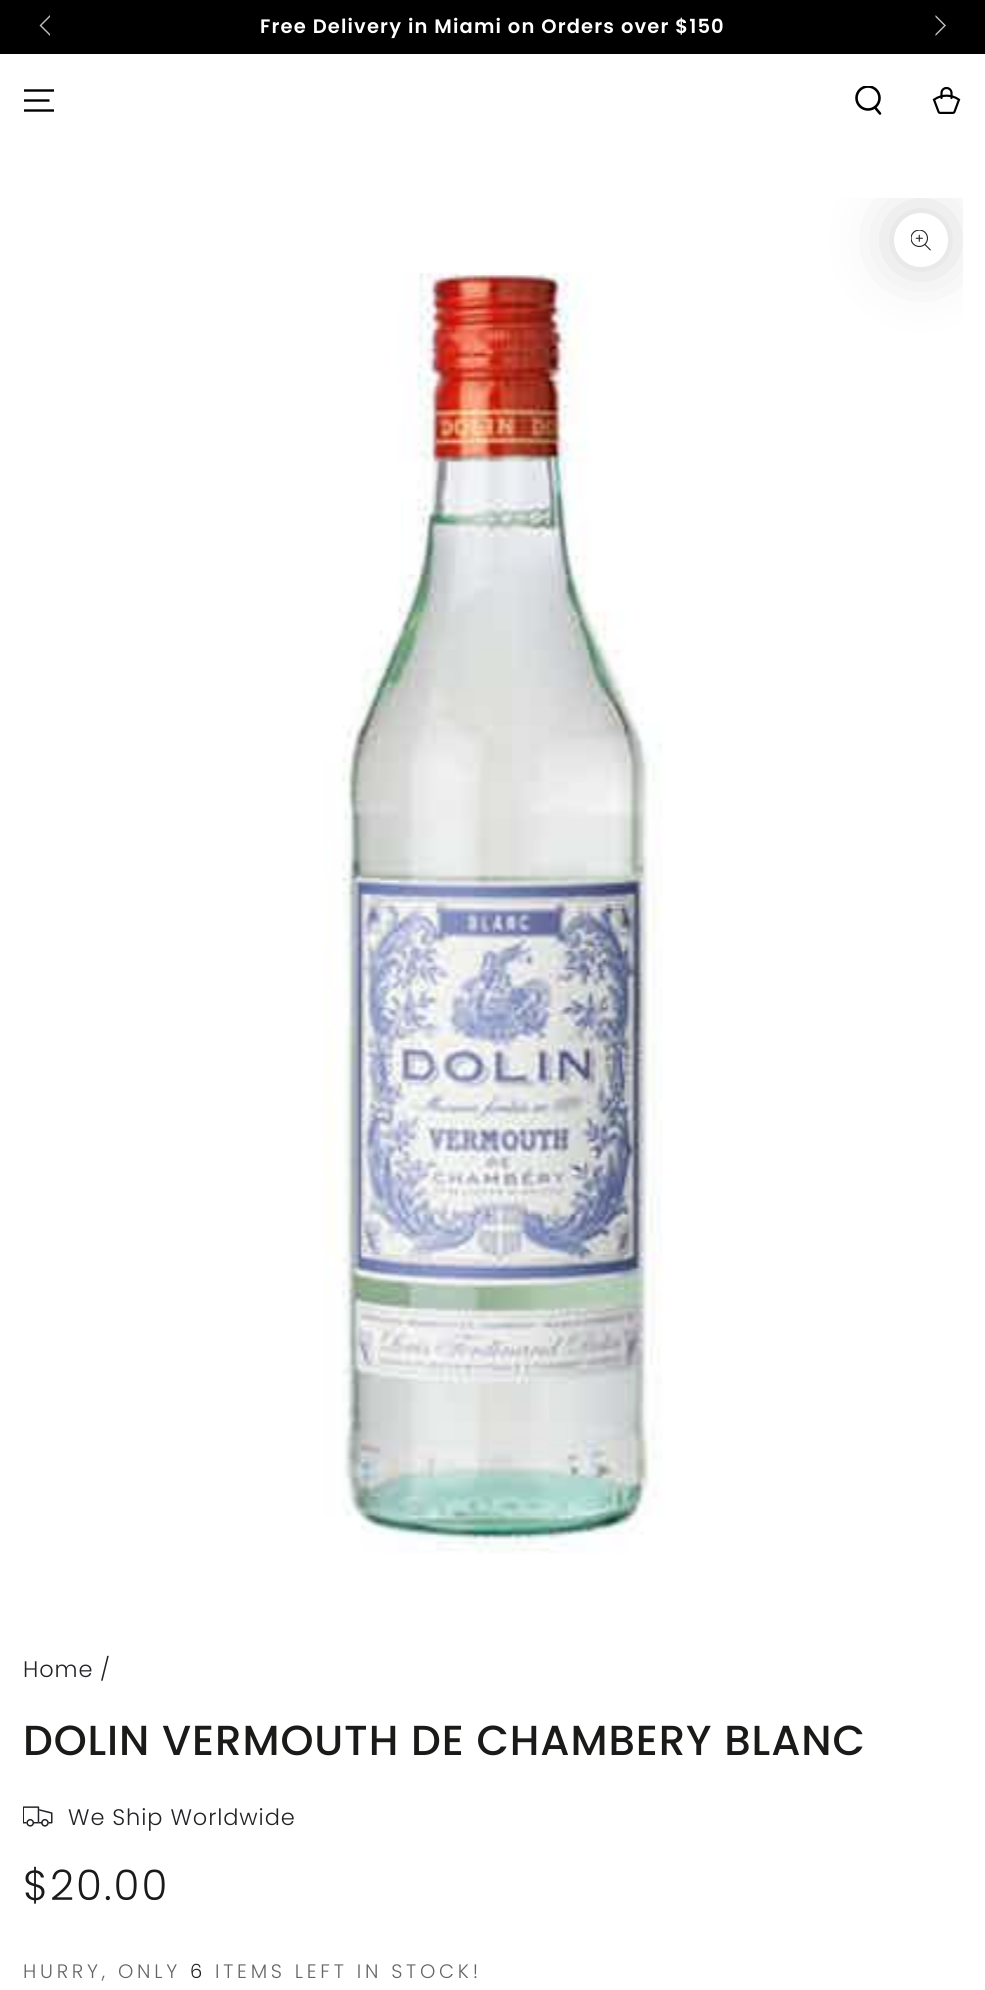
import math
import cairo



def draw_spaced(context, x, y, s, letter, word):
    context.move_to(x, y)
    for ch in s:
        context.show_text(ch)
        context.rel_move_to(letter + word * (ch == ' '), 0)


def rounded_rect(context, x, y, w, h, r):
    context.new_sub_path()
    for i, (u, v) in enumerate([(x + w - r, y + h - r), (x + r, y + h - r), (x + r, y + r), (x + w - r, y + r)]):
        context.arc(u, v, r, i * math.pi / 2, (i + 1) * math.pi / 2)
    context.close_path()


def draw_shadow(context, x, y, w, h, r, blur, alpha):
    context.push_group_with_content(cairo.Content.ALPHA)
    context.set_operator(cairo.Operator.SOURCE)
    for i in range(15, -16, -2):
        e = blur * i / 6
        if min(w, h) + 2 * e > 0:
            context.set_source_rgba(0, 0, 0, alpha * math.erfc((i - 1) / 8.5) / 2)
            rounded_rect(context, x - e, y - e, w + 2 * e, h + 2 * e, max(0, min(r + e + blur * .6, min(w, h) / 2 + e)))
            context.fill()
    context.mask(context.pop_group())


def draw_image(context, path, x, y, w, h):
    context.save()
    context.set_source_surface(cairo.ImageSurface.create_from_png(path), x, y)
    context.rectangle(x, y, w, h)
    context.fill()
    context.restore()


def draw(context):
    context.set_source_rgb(1, 1, 1)
    context.paint()
    context.set_source_rgb(0, 0, 0)
    context.rectangle(0, 0, 985, 54)
    context.fill()
    context.set_source_rgb(191 / 255, 191 / 255, 191 / 255)
    context.set_fill_rule(cairo.FillRule.EVEN_ODD)
    context.new_path()
    context.move_to(39.5, 25.5)
    context.line_to(50, 36)
    context.line_to(50, 34)
    context.line_to(41.5, 25.5)
    context.line_to(50, 17)
    context.line_to(50, 15)
    context.close_path()
    context.fill()
    context.new_path()
    context.move_to(946, 25.5)
    context.line_to(935.5, 36)
    context.line_to(935.5, 34)
    context.line_to(944, 25.5)
    context.line_to(935.5, 17)
    context.line_to(935.5, 15)
    context.close_path()
    context.fill()
    context.new_path()
    context.move_to(24, 110.5)
    context.line_to(54, 110.5)
    context.move_to(24, 100.5)
    context.line_to(49.5, 100.5)
    context.move_to(24, 90.5)
    context.line_to(54, 90.5)
    context.set_source_rgb(0, 0, 0)
    context.set_line_width(2.4)
    context.stroke()
    context.save()
    context.set_fill_rule(cairo.FillRule.WINDING)
    context.rectangle(854, 86, 30, 30)
    context.clip()
    context.arc(868, 98, 11.5, 0, 2 * math.pi)
    context.set_line_width(2.6)
    context.stroke()
    context.restore()
    context.new_path()
    context.move_to(875, 107.5)
    context.line_to(880, 113.5)
    context.set_line_width(2.6)
    context.set_line_cap(cairo.LineCap.ROUND)
    context.stroke()
    draw_image(context, "images/1.png", 932, 86, 29, 28)
    context.save()
    context.set_fill_rule(cairo.FillRule.WINDING)
    context.rectangle(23, 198, 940, 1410)
    context.clip()
    context.set_source_rgb(33 / 255, 35 / 255, 38 / 255)
    draw_shadow(context, 894, 213, 54, 54, 27, 30, 0.2)
    context.restore()
    context.set_source_rgb(1, 1, 1)
    context.arc(921, 240, 27, 0, 2 * math.pi)
    context.fill()
    draw_image(context, "images/2.png", 911, 230, 20, 21)
    draw_image(context, "images/3.png", 323, 272, 340, 1282)
    draw_image(context, "images/4.png", 23, 1806, 30, 21)
    context.select_font_face("Poppins SemiBold")
    context.set_font_size(19.5)
    draw_spaced(context, 260, 33, "Free Delivery in Miami on Orders over $150", 1.15, 0)
    context.select_font_face("Poppins Light")
    context.set_font_size(22.5)
    context.set_source_rgb(33 / 255, 35 / 255, 38 / 255)
    draw_spaced(context, 23, 1677, "Home", 0.9, 0)
    draw_spaced(context, 100, 1677, "/", 0.9, 0)
    context.select_font_face("Poppins Medium")
    context.set_font_size(42)
    context.set_source_rgb(26 / 255, 27 / 255, 24 / 255)
    draw_spaced(context, 23, 1755, "DOLIN VERMOUTH DE CHAMBERY BLANC", 0.9, 0)
    context.select_font_face("Poppins Light")
    context.set_font_size(22.5)
    context.set_source_rgb(33 / 255, 35 / 255, 38 / 255)
    draw_spaced(context, 68, 1825, "We Ship Worldwide", 0.9, 0)
    context.set_font_size(42)
    context.set_source_rgb(26 / 255, 27 / 255, 24 / 255)
    draw_spaced(context, 23, 1900, "$20.00", 2, 0)
    context.set_font_size(19.5)
    context.set_source_rgb(100 / 255, 101 / 255, 103 / 255)
    draw_spaced(context, 23, 1978, "HURRY, ONLY", 3.75, 0)
    context.set_source_rgb(33 / 255, 35 / 255, 38 / 255)
    draw_spaced(context, 190, 1978, "6", 3.75, 0)
    context.set_source_rgb(100 / 255, 101 / 255, 103 / 255)
    draw_spaced(context, 215, 1978, "ITEMS LEFT IN STOCK!", 3.75, 0)


surface = cairo.ImageSurface(cairo.Format.RGB24, 985, 1990)
context = cairo.Context(surface)
options = cairo.FontOptions()
options.set_hint_metrics(cairo.HintMetrics.OFF)
options.set_hint_style(cairo.HintStyle.NONE)
context.set_font_options(options)
context.set_miter_limit(4)
draw(context)
surface.write_to_png("out.png")
